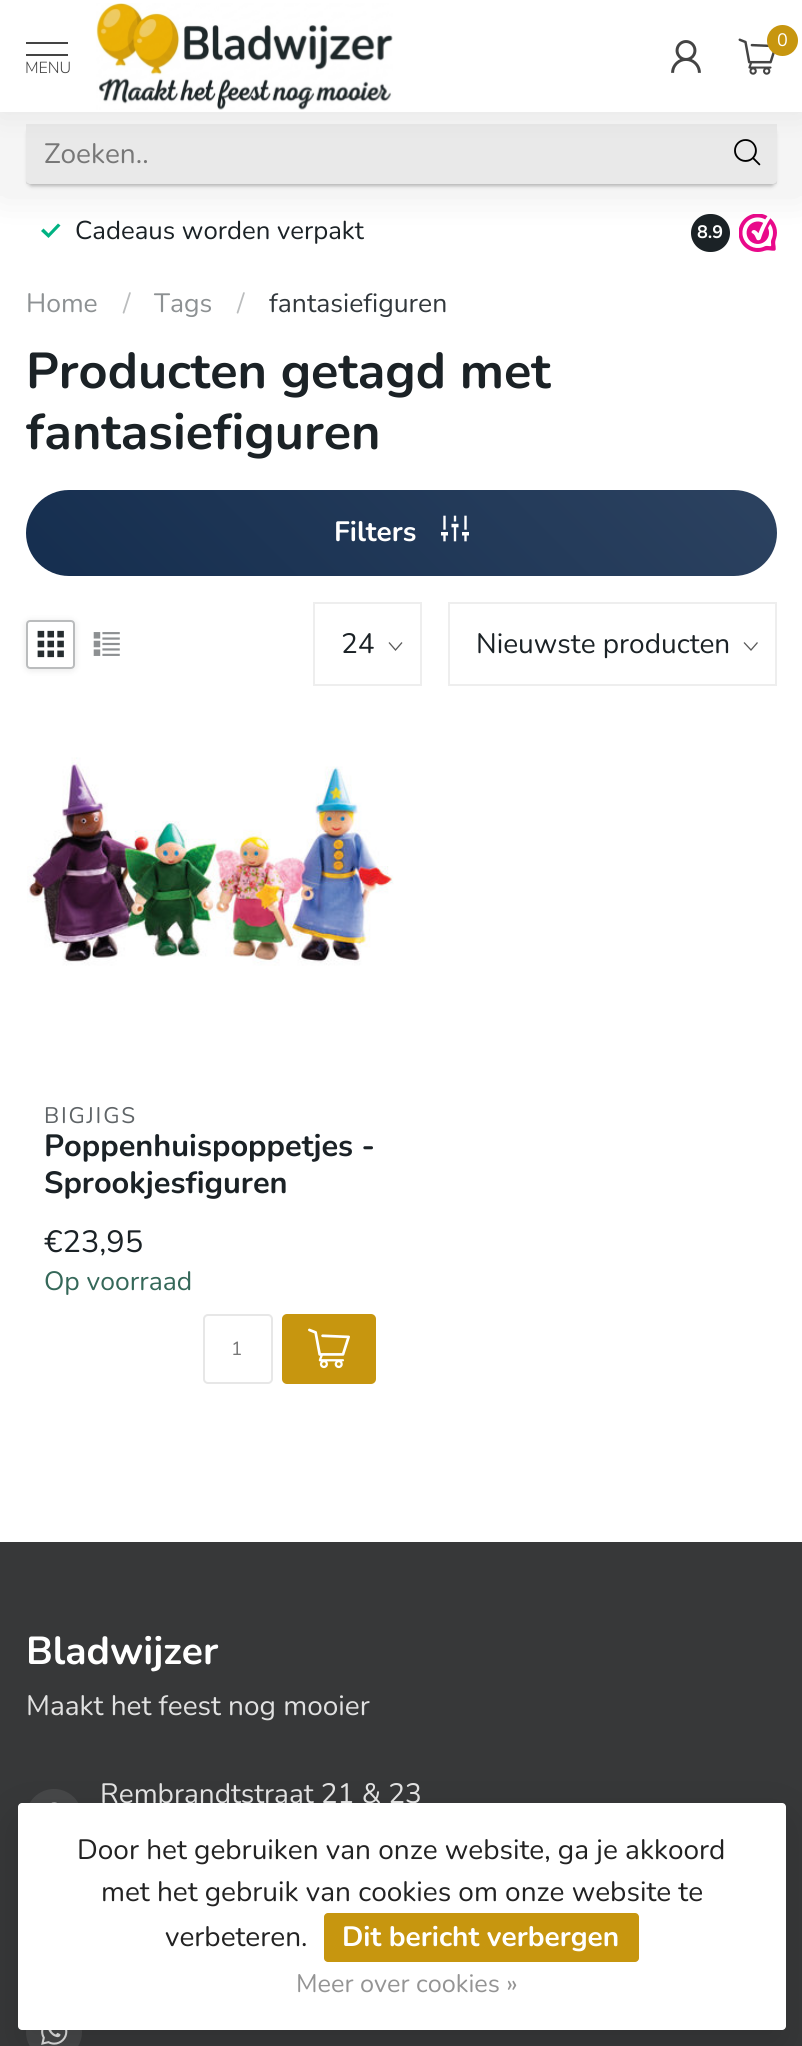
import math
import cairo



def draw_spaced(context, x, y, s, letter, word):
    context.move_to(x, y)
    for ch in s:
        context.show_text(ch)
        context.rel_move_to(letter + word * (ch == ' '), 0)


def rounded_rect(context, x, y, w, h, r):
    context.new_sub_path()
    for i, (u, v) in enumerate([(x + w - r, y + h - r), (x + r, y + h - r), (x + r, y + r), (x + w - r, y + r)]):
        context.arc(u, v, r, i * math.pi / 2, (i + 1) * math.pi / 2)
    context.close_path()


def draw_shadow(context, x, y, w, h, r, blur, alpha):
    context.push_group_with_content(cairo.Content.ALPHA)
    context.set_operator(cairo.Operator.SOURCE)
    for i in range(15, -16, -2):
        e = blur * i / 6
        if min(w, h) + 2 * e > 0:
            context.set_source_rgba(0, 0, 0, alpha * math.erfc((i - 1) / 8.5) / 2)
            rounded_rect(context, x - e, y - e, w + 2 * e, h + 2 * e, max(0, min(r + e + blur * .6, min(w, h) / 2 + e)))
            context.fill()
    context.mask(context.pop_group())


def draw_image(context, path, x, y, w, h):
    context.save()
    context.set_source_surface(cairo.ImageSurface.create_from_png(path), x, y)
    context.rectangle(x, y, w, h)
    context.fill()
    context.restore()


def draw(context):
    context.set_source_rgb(1, 1, 1)
    context.paint()
    context.set_source_rgb(0, 178 / 255, 130 / 255)
    context.new_path()
    context.move_to(48.5, 238)
    context.line_to(41, 231)
    context.line_to(43.5, 228.5)
    context.line_to(48.5, 233.5)
    context.line_to(58, 223.5)
    context.line_to(60.5, 225.5)
    context.close_path()
    context.fill()
    context.set_source_rgb(27 / 255, 34 / 255, 38 / 255)
    rounded_rect(context, 691, 214, 39, 38, 19)
    context.fill()
    draw_image(context, "images/5.png", 739, 214, 38, 38)
    context.set_source_rgb(0, 0, 0)
    draw_shadow(context, 0, 112, 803, 84, 0, 19, 0.08)
    context.set_source_rgb(245 / 255, 245 / 255, 245 / 255)
    context.rectangle(0, 112, 802, 84)
    context.fill()
    context.save()
    context.set_fill_rule(cairo.FillRule.EVEN_ODD)
    context.new_path()
    context.move_to(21, 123)
    context.line_to(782, 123)
    context.line_to(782, 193)
    context.line_to(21, 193)
    context.close_path()
    context.move_to(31, 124)
    context.line_to(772, 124)
    context.curve_to(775, 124, 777, 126, 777, 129)
    context.line_to(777, 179)
    context.curve_to(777, 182, 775, 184, 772, 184)
    context.line_to(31, 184)
    context.curve_to(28, 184, 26, 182, 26, 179)
    context.line_to(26, 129)
    context.curve_to(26, 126, 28, 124, 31, 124)
    context.close_path()
    context.clip()
    context.set_source_rgb(155 / 255, 155 / 255, 155 / 255)
    draw_shadow(context, 28, 130, 747, 56, 4, 2, 0.75)
    context.restore()
    context.set_source_rgba(0, 0, 0, 0.05)
    context.rectangle(26, 124, 751, 60)
    context.fill()
    draw_image(context, "images/4.png", 734, 139, 27, 27)
    context.set_source_rgb(0, 0, 0)
    draw_shadow(context, 0, 0, 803, 112, 0, 17.5, 0.07)
    context.set_source_rgb(1, 1, 1)
    context.rectangle(0, 0, 802, 112)
    context.fill()
    draw_image(context, "images/1.png", 671, 40, 30, 33)
    draw_image(context, "images/2.png", 738, 38, 37, 37)
    context.set_source_rgb(199 / 255, 150 / 255, 15 / 255)
    context.arc(782.5, 40.5, 15.5, 0, 2 * math.pi)
    context.fill()
    context.set_source_rgb(68 / 255, 68 / 255, 68 / 255)
    context.rectangle(26, 42, 42, 2)
    context.fill()
    context.rectangle(26, 54, 42, 2)
    context.fill()
    draw_image(context, "images/3.png", 96, 3, 297, 107)
    gradient = cairo.LinearGradient(193, 742, 611, 324)
    gradient.add_color_stop_rgba(0, 21 / 255, 46 / 255, 79 / 255, 1)
    gradient.add_color_stop_rgba(1, 44 / 255, 66 / 255, 96 / 255, 1)
    context.set_source(gradient)
    rounded_rect(context, 26, 490, 751, 86, 43)
    context.fill()
    draw_image(context, "images/6.png", 441, 515, 28, 27)
    context.save()
    context.set_fill_rule(cairo.FillRule.EVEN_ODD)
    context.new_path()
    context.move_to(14, 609)
    context.line_to(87, 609)
    context.line_to(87, 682)
    context.line_to(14, 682)
    context.close_path()
    context.move_to(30, 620)
    context.line_to(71, 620)
    context.curve_to(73, 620, 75, 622, 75, 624)
    context.line_to(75, 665)
    context.curve_to(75, 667, 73, 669, 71, 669)
    context.line_to(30, 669)
    context.curve_to(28, 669, 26, 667, 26, 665)
    context.line_to(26, 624)
    context.curve_to(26, 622, 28, 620, 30, 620)
    context.close_path()
    context.clip()
    context.set_source_rgb(0, 0, 0)
    draw_shadow(context, 26, 621, 49, 49, 4, 3.5, 0.1)
    context.restore()
    rounded_rect(context, 27, 621, 47, 47, 3)
    context.set_source_rgb(186 / 255, 188 / 255, 189 / 255)
    context.stroke()
    draw_image(context, "images/7.png", 37, 630, 27, 28)
    draw_image(context, "images/8.png", 93, 632, 27, 24)
    context.new_path()
    context.move_to(402, 642.5)
    context.line_to(395.5, 650)
    context.line_to(389, 642.5)
    context.set_source_rgb(89 / 255, 89 / 255, 89 / 255)
    context.set_line_width(1.3)
    context.stroke()
    context.rectangle(314, 603, 107, 82)
    context.set_source_rgb(238 / 255, 238 / 255, 238 / 255)
    context.set_line_width(2)
    context.stroke()
    context.new_path()
    context.move_to(757.5, 642.5)
    context.line_to(751, 650)
    context.line_to(744, 642.5)
    context.set_source_rgb(89 / 255, 89 / 255, 89 / 255)
    context.set_line_width(1.3)
    context.stroke()
    context.rectangle(449, 603, 327, 82)
    context.set_source_rgb(238 / 255, 238 / 255, 238 / 255)
    context.set_line_width(2)
    context.stroke()
    draw_image(context, "images/9.png", 27, 757, 367, 209)
    rounded_rect(context, 204, 1315, 68, 68, 4)
    context.set_source_rgb(231 / 255, 231 / 255, 231 / 255)
    context.stroke()
    context.set_source_rgb(199 / 255, 150 / 255, 15 / 255)
    rounded_rect(context, 282, 1314, 94, 70, 5)
    context.fill()
    draw_image(context, "images/10.png", 308, 1328, 42, 41)
    context.set_source_rgb(55 / 255, 56 / 255, 57 / 255)
    context.rectangle(0, 1542, 802, 504)
    context.fill()
    context.set_source_rgb(71 / 255, 72 / 255, 73 / 255)
    context.arc(54, 1817, 28, 0, 2 * math.pi)
    context.fill()
    draw_image(context, "images/11.png", 51, 1802, 6, 1)
    context.arc(54, 2032, 28, 0, 2 * math.pi)
    context.fill()
    draw_image(context, "images/12.png", 41, 2030, 27, 15)
    context.set_source_rgb(0, 0, 0)
    draw_shadow(context, 18, 1820, 768, 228, 4, 26, 0.15)
    context.select_font_face("Nunito")
    context.set_font_size(18)
    context.set_source_rgb(1, 1, 1)
    context.move_to(777, 46)
    context.show_text("0")
    context.select_font_face("Nunito Light")
    context.set_font_size(16)
    context.set_source_rgb(68 / 255, 68 / 255, 68 / 255)
    context.move_to(25, 73)
    context.show_text("MENU")
    context.select_font_face("Nunito")
    context.set_font_size(28)
    context.set_source_rgb(119 / 255, 119 / 255, 119 / 255)
    context.move_to(44, 163)
    context.show_text("Zoeken..")
    context.set_font_size(25.75)
    context.set_source_rgb(27 / 255, 34 / 255, 38 / 255)
    context.move_to(75, 239)
    context.show_text("Cadeaus worden verpakt")
    context.select_font_face("Nunito", cairo.FontSlant.NORMAL, cairo.FontWeight.BOLD)
    context.set_font_size(18)
    context.set_source_rgb(1, 1, 1)
    context.move_to(697, 238)
    context.show_text("8.9")
    context.select_font_face("Nunito")
    context.set_font_size(26.5)
    context.set_source_rgb(141 / 255, 145 / 255, 147 / 255)
    context.move_to(26, 312)
    context.show_text("Home")
    context.set_source_rgb(187 / 255, 189 / 255, 190 / 255)
    context.move_to(123, 312)
    context.show_text("/")
    context.set_source_rgb(141 / 255, 145 / 255, 147 / 255)
    context.move_to(154, 312)
    context.show_text("Tags")
    context.set_source_rgb(187 / 255, 189 / 255, 190 / 255)
    context.move_to(237, 312)
    context.show_text("/")
    context.set_source_rgb(50 / 255, 56 / 255, 60 / 255)
    context.move_to(269, 312)
    context.show_text("fantasiefiguren")
    context.select_font_face("Nunito", cairo.FontSlant.NORMAL, cairo.FontWeight.BOLD)
    context.set_font_size(50.4)
    context.set_source_rgb(27 / 255, 34 / 255, 38 / 255)
    context.move_to(26, 388)
    context.show_text("Producten getagd met")
    context.move_to(26, 449)
    context.show_text("fantasiefiguren")
    context.set_font_size(28)
    context.set_source_rgb(1, 1, 1)
    context.move_to(334, 541)
    context.show_text("Filters")
    context.select_font_face("Nunito")
    context.set_source_rgb(27 / 255, 34 / 255, 38 / 255)
    context.move_to(341, 653)
    context.show_text("24")
    context.move_to(476, 653)
    context.show_text("Nieuwste producten")
    context.set_font_size(22.5)
    context.set_source_rgb(95 / 255, 100 / 255, 103 / 255)
    draw_spaced(context, 44, 1123, "BIGJIGS", 1.75, 0)
    context.select_font_face("Nunito", cairo.FontSlant.NORMAL, cairo.FontWeight.BOLD)
    context.set_font_size(30.75)
    context.set_source_rgb(27 / 255, 34 / 255, 38 / 255)
    context.move_to(44, 1156)
    context.show_text("Poppenhuispoppetjes -")
    context.move_to(44, 1193)
    context.show_text("Sprookjesfiguren")
    context.select_font_face("Nunito")
    context.move_to(44, 1252)
    context.show_text("€23,95")
    context.set_font_size(26.5)
    context.set_source_rgb(53 / 255, 104 / 255, 89 / 255)
    context.move_to(44, 1290)
    context.show_text("Op voorraad")
    context.set_font_size(19)
    context.set_source_rgb(119 / 255, 119 / 255, 119 / 255)
    context.move_to(231, 1355)
    context.show_text("1")
    context.select_font_face("Nunito", cairo.FontSlant.NORMAL, cairo.FontWeight.BOLD)
    context.set_font_size(39)
    context.set_source_rgb(1, 1, 1)
    context.move_to(26, 1664)
    context.show_text("Bladwijzer")
    context.select_font_face("Nunito")
    context.set_font_size(28)
    context.set_source_rgb(225 / 255, 225 / 255, 225 / 255)
    context.move_to(26, 1715)
    context.show_text("Maakt het feest nog mooier")
    context.move_to(100, 1803)
    context.show_text("Rembrandtstraat 21 & 23")
    context.set_source_rgb(1, 1, 1)
    rounded_rect(context, 18, 1803, 768, 227, 4)
    context.fill()
    context.set_source_rgb(34 / 255, 34 / 255, 34 / 255)
    context.move_to(77, 1859)
    context.show_text("Door het gebruiken van onze website, ga je akkoord")
    context.move_to(101, 1901)
    context.show_text("met het gebruik van cookies om onze website te")
    context.move_to(165, 1946)
    context.show_text("verbeteren.")
    context.set_source_rgb(199 / 255, 150 / 255, 15 / 255)
    rounded_rect(context, 324, 1913, 315, 49, 4)
    context.fill()
    context.select_font_face("Nunito", cairo.FontSlant.NORMAL, cairo.FontWeight.BOLD)
    context.set_source_rgb(1, 1, 1)
    context.move_to(342, 1946)
    context.show_text("Dit bericht verbergen")
    context.select_font_face("Nunito")
    context.set_font_size(25.25)
    context.set_source_rgb(148 / 255, 148 / 255, 148 / 255)
    context.move_to(296, 1992)
    context.show_text("Meer over cookies »")


surface = cairo.ImageSurface(cairo.Format.RGB24, 802, 2046)
context = cairo.Context(surface)
options = cairo.FontOptions()
options.set_hint_metrics(cairo.HintMetrics.OFF)
options.set_hint_style(cairo.HintStyle.NONE)
context.set_font_options(options)
context.set_miter_limit(4)
draw(context)
surface.write_to_png("out.png")
